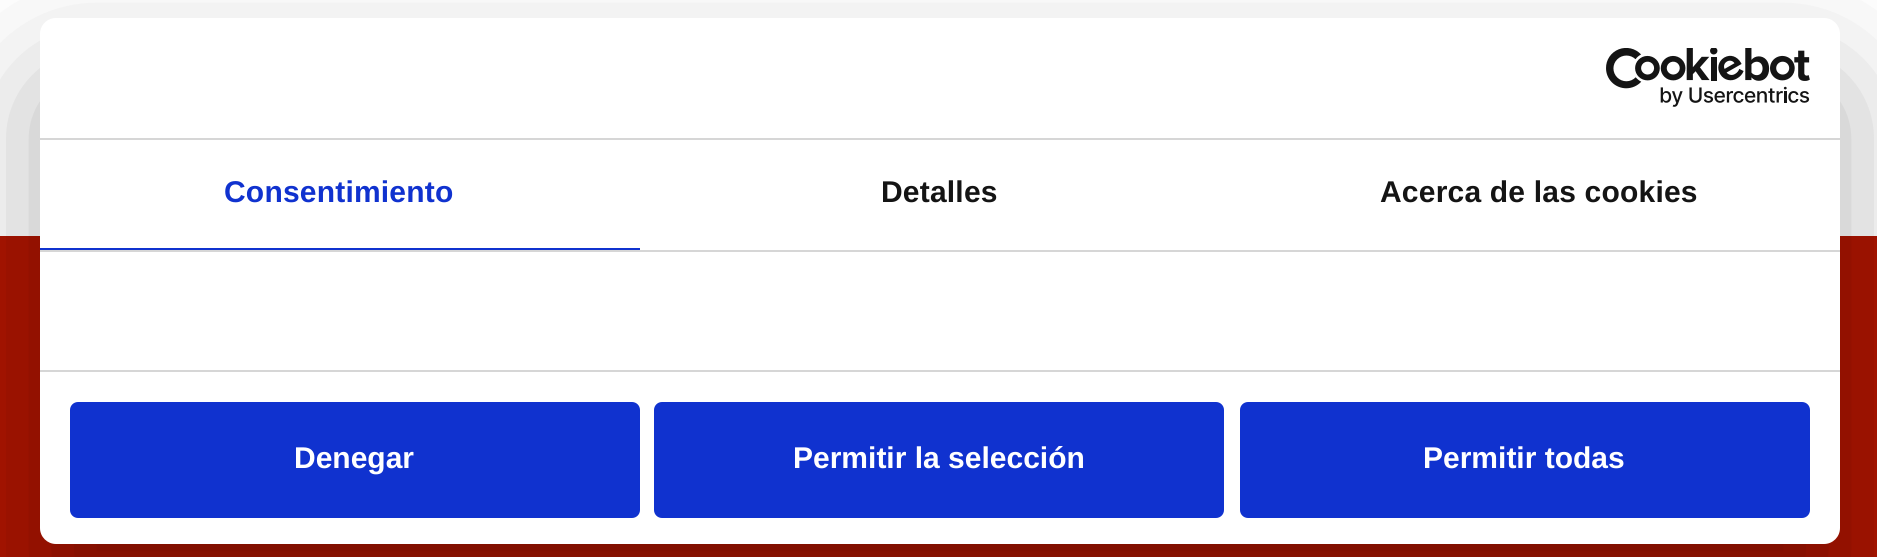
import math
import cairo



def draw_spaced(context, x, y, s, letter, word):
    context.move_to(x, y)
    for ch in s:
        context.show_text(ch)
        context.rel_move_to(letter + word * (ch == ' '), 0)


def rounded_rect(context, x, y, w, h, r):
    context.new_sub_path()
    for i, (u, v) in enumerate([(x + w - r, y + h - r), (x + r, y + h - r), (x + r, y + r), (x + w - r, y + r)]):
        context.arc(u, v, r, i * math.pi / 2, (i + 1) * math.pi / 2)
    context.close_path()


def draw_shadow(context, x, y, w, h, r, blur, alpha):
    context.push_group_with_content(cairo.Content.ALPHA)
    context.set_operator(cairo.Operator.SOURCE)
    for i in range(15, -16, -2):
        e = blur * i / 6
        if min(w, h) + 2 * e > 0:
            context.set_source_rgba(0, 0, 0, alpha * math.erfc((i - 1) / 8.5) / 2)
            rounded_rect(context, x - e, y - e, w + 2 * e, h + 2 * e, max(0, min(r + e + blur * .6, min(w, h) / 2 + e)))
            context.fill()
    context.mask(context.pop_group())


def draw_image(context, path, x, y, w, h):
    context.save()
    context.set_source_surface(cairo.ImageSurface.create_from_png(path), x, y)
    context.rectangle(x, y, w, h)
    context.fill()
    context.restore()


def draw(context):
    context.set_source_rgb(1, 1, 1)
    context.paint()
    context.set_source_rgb(173 / 255, 20 / 255, 0)
    context.rectangle(0, 236, 1877, 321)
    context.fill()
    context.set_source_rgb(0, 0, 0)
    draw_shadow(context, 40, 82, 1800, 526, 16, 68, 0.3)
    context.set_source_rgb(1, 1, 1)
    rounded_rect(context, 40, 18, 1800, 526, 16)
    context.fill()
    context.set_source_rgb(214 / 255, 214 / 255, 214 / 255)
    context.rectangle(40, 138, 1800, 2)
    context.fill()
    draw_image(context, "images/1.png", 1606, 48, 204, 59)
    context.rectangle(40, 250, 1800, 2)
    context.fill()
    context.set_source_rgb(16 / 255, 50 / 255, 207 / 255)
    context.rectangle(40, 248, 600, 2)
    context.fill()
    context.set_source_rgb(214 / 255, 214 / 255, 214 / 255)
    context.rectangle(40, 370, 1800, 2)
    context.fill()
    context.set_source_rgb(16 / 255, 50 / 255, 207 / 255)
    rounded_rect(context, 72, 404, 566, 112, 6)
    context.fill_preserve()
    context.set_line_width(4)
    context.stroke()
    rounded_rect(context, 656, 404, 566, 112, 6)
    context.fill_preserve()
    context.stroke()
    rounded_rect(context, 1242, 404, 566, 112, 6)
    context.fill_preserve()
    context.stroke()
    context.select_font_face("Liberation Sans", cairo.FontSlant.NORMAL, cairo.FontWeight.BOLD)
    context.set_font_size(30)
    draw_spaced(context, 224, 202, "Consentimiento", 0.2, 0)
    context.set_source_rgb(20 / 255, 20 / 255, 20 / 255)
    draw_spaced(context, 881, 202, "Detalles", 0.2, 0)
    draw_spaced(context, 1380, 202, "Acerca de las cookies", 0.2, 0)
    context.set_source_rgb(1, 1, 1)
    context.move_to(294, 468)
    context.show_text("Denegar")
    context.move_to(793, 468)
    context.show_text("Permitir la selección")
    context.move_to(1423, 468)
    context.show_text("Permitir todas")


surface = cairo.ImageSurface(cairo.Format.RGB24, 1877, 557)
context = cairo.Context(surface)
options = cairo.FontOptions()
options.set_hint_metrics(cairo.HintMetrics.OFF)
options.set_hint_style(cairo.HintStyle.NONE)
context.set_font_options(options)
context.set_miter_limit(4)
draw(context)
surface.write_to_png("out.png")
